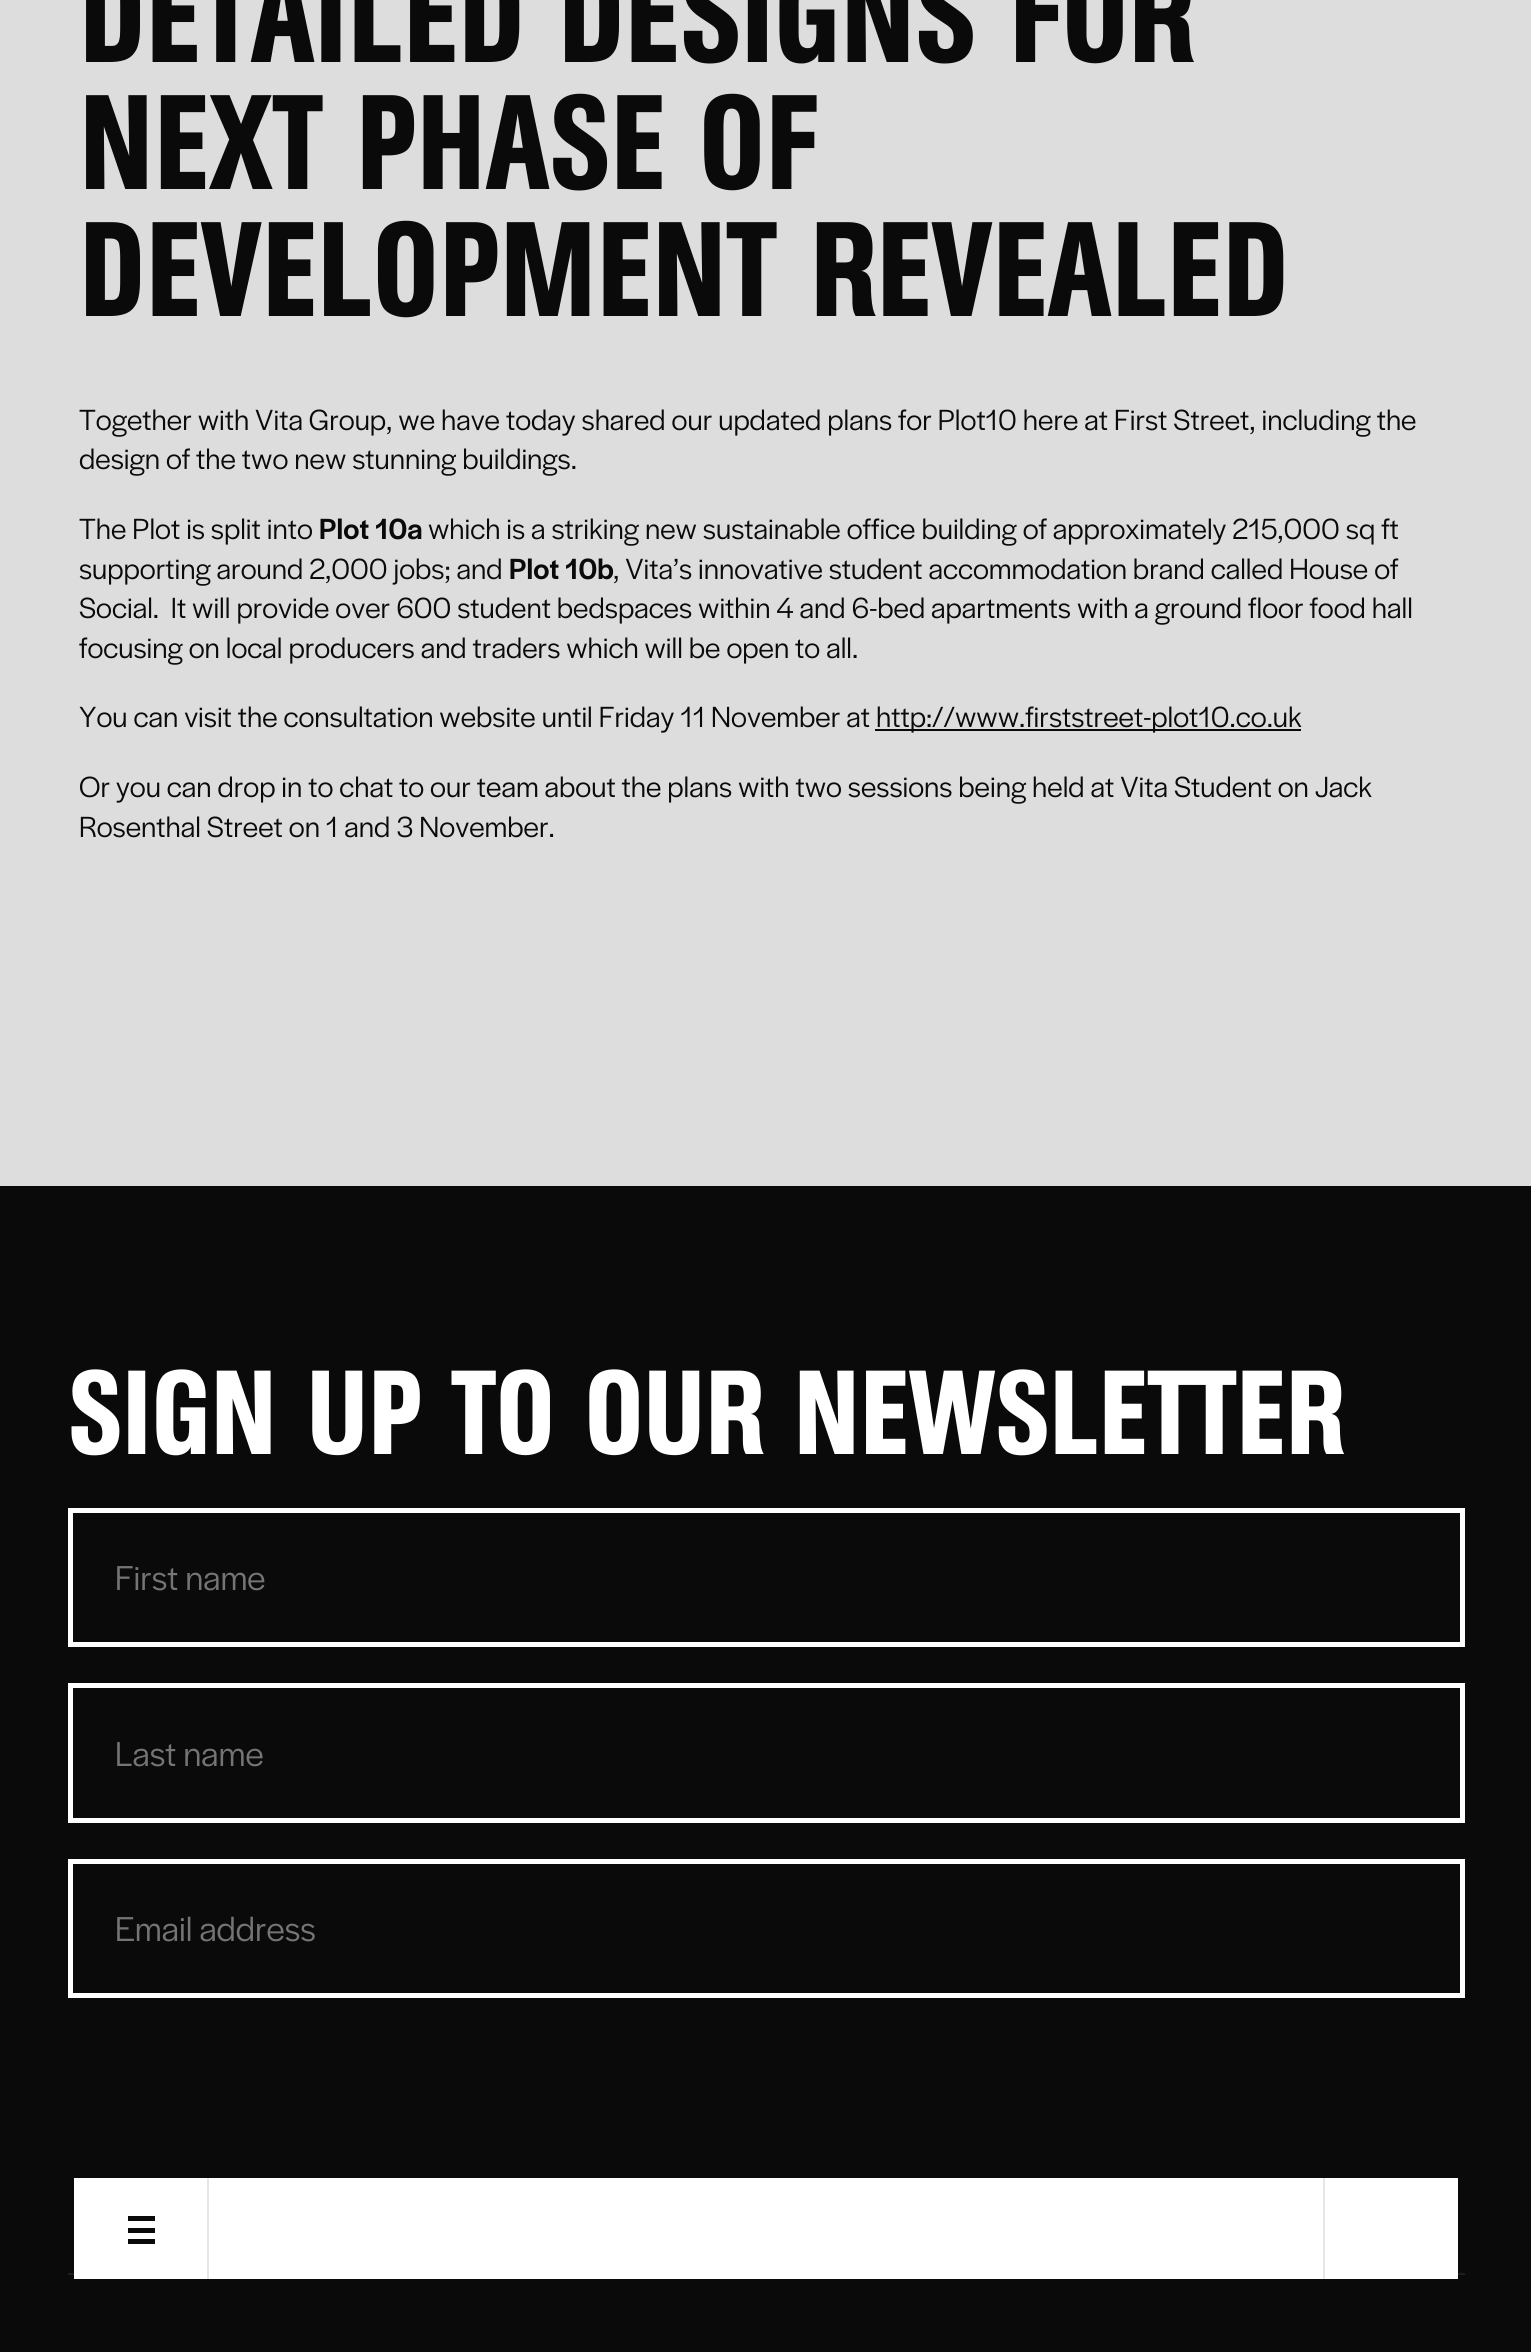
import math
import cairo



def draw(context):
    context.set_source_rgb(221 / 255, 221 / 255, 221 / 255)
    context.paint()
    context.set_source_rgb(10 / 255, 10 / 255, 10 / 255)
    context.rectangle(875, 729, 426, 2)
    context.fill()
    context.rectangle(0, 1186, 1531, 1166)
    context.fill()
    context.set_source_rgb(30 / 255, 30 / 255, 30 / 255)
    context.rectangle(68, 2273, 1397, 2)
    context.fill()
    context.rectangle(70.5, 1510.5, 1392, 134)
    context.set_source_rgb(1, 1, 1)
    context.set_line_width(5)
    context.stroke()
    context.rectangle(70.5, 1685.5, 1392, 135)
    context.stroke()
    context.rectangle(70.5, 1861.5, 1392, 134)
    context.stroke()
    context.rectangle(74, 2178, 1384, 101)
    context.fill()
    context.set_source_rgb(230 / 255, 230 / 255, 230 / 255)
    context.rectangle(207, 2178, 2, 101)
    context.fill()
    context.set_source_rgb(10 / 255, 10 / 255, 10 / 255)
    context.rectangle(128, 2216, 27, 5)
    context.fill()
    context.rectangle(128, 2228, 27, 5)
    context.fill()
    context.rectangle(128, 2239, 27, 5)
    context.fill()
    context.set_source_rgb(230 / 255, 230 / 255, 230 / 255)
    context.rectangle(1323, 2178, 2, 101)
    context.fill()
    context.select_font_face("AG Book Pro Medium")
    context.set_font_size(132.9)
    context.set_source_rgb(10 / 255, 10 / 255, 10 / 255)
    context.move_to(79, 62)
    context.show_text("DETAILED DESIGNS FOR")
    context.move_to(79, 189)
    context.show_text("NEXT PHASE OF")
    context.move_to(79, 316)
    context.show_text("DEVELOPMENT REVEALED")
    context.select_font_face("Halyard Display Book")
    context.set_font_size(30.4)
    context.move_to(79, 430)
    context.show_text("Together with Vita Group, we have today shared our updated plans for Plot10 here at First Street, including the")
    context.move_to(79, 469)
    context.show_text("design of the two new stunning buildings.")
    context.move_to(79, 539)
    context.show_text("The Plot is split into")
    context.select_font_face("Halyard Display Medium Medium")
    context.move_to(319, 539)
    context.show_text("Plot 10a")
    context.select_font_face("Halyard Display Book")
    context.move_to(428, 539)
    context.show_text("which is a striking new sustainable office building of approximately 215,000 sq ft")
    context.move_to(79, 579)
    context.show_text("supporting around 2,000 jobs; and")
    context.select_font_face("Halyard Display Medium Medium")
    context.move_to(509, 579)
    context.show_text("Plot 10b")
    context.select_font_face("Halyard Display Book")
    context.move_to(613, 579)
    context.show_text(", Vita’s innovative student accommodation brand called House of")
    context.move_to(79, 618)
    context.show_text("Social.  It will provide over 600 student bedspaces within 4 and 6-bed apartments with a ground floor food hall")
    context.move_to(79, 658)
    context.show_text("focusing on local producers and traders which will be open to all.")
    context.move_to(79, 727)
    context.show_text("You can visit the consultation website until Friday 11 November at")
    context.move_to(876, 727)
    context.show_text("http://www.firststreet-plot10.co.uk")
    context.move_to(79, 797)
    context.show_text("Or you can drop in to chat to our team about the plans with two sessions being held at Vita Student on Jack")
    context.move_to(79, 837)
    context.show_text("Rosenthal Street on 1 and 3 November.")
    context.select_font_face("AG Book Pro Medium")
    context.set_font_size(118.1)
    context.set_source_rgb(1, 1, 1)
    context.move_to(68, 1454)
    context.show_text("SIGN UP TO OUR NEWSLETTER")
    context.select_font_face("Halyard Display Book")
    context.set_font_size(36)
    context.set_source_rgb(117 / 255, 117 / 255, 117 / 255)
    context.move_to(115, 1590)
    context.show_text("First name")
    context.move_to(115, 1766)
    context.show_text("Last name")
    context.move_to(115, 1941)
    context.show_text("Email address")


surface = cairo.ImageSurface(cairo.Format.RGB24, 1531, 2352)
context = cairo.Context(surface)
options = cairo.FontOptions()
options.set_hint_metrics(cairo.HintMetrics.OFF)
options.set_hint_style(cairo.HintStyle.NONE)
context.set_font_options(options)
context.set_miter_limit(4)
draw(context)
surface.write_to_png("out.png")
